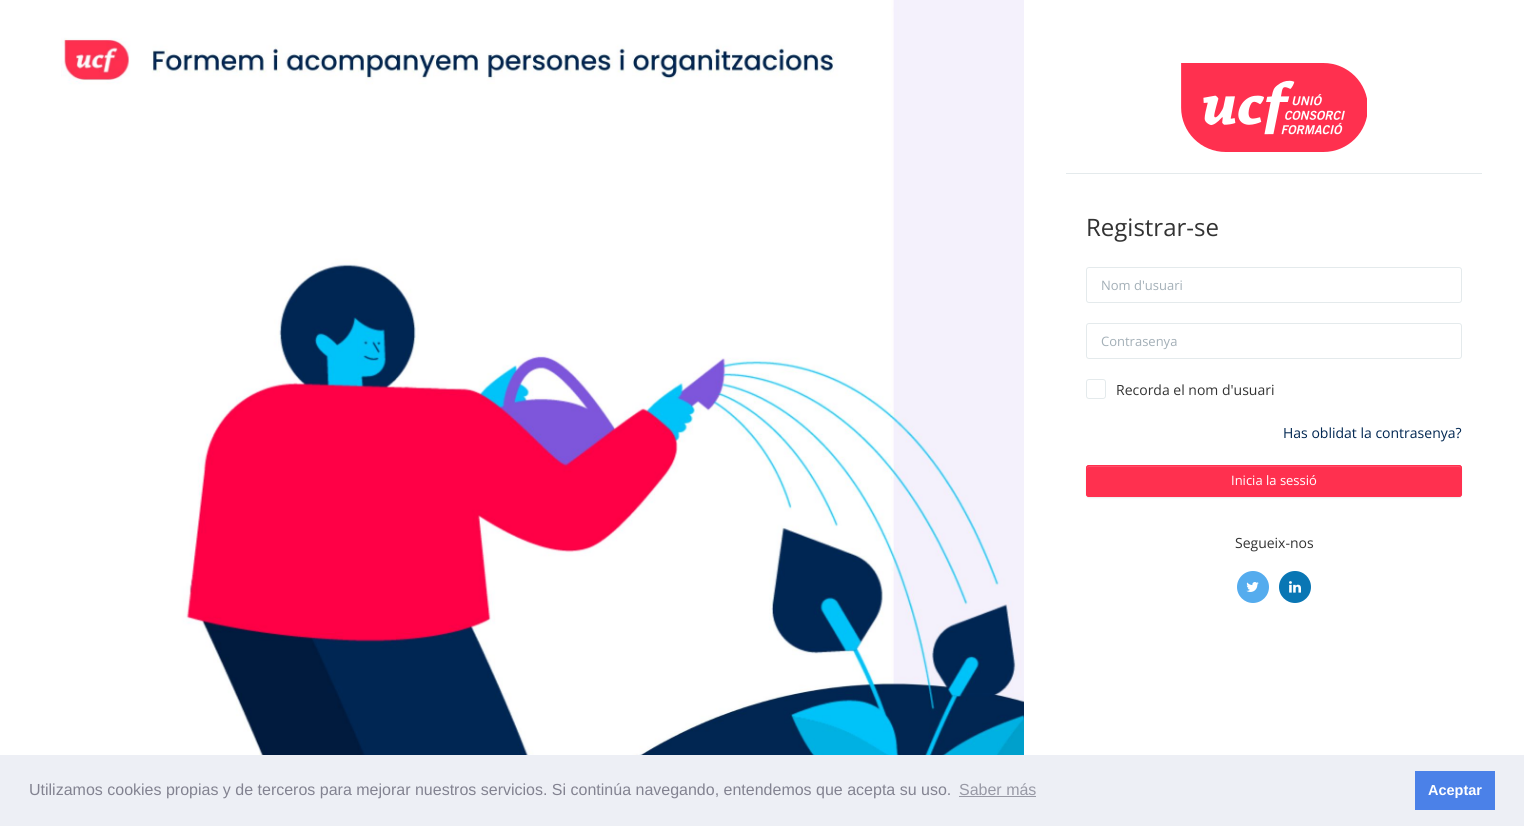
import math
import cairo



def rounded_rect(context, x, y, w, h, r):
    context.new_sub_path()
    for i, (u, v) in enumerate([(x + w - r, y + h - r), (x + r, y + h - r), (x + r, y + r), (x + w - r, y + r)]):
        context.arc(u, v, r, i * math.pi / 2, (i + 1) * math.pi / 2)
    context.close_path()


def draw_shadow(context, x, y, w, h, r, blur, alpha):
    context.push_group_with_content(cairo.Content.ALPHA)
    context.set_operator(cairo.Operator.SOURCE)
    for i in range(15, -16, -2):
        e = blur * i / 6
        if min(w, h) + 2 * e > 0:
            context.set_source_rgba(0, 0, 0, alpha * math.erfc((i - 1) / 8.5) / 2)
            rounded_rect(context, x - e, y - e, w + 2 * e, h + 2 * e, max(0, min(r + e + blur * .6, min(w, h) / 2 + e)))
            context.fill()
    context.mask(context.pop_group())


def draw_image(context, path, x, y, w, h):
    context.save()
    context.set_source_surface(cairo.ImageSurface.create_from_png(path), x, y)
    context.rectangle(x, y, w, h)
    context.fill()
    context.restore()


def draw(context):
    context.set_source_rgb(1, 1, 1)
    context.paint()
    draw_image(context, "images/1.png", 61, 0, 963, 755)
    context.set_source_rgb(228 / 255, 234 / 255, 236 / 255)
    context.rectangle(1066, 173, 416, 1)
    context.fill()
    draw_image(context, "images/2.png", 1181, 63, 186, 89)
    rounded_rect(context, 1086.5, 267.5, 375, 35, 2.5)
    context.set_line_width(1)
    context.stroke()
    rounded_rect(context, 1086.5, 323.5, 375, 35, 2.5)
    context.stroke()
    rounded_rect(context, 1086.5, 379.5, 19, 19, 2.5)
    context.stroke()
    context.set_source_rgb(0, 0, 0)
    draw_shadow(context, 1086, 466, 376, 32, 3, 0.5, 0.07)
    context.set_source_rgb(1, 48 / 255, 79 / 255)
    rounded_rect(context, 1086, 465, 376, 32, 3)
    context.fill()
    context.set_source_rgb(1, 79 / 255, 105 / 255)
    context.new_path()
    context.move_to(1089, 467)
    context.line_to(1459, 467)
    context.curve_to(1460, 467, 1461, 468, 1461, 469)
    context.curve_to(1461, 468, 1461, 466, 1459, 466)
    context.line_to(1089, 466)
    context.line_to(1087, 467)
    context.line_to(1087, 469)
    context.curve_to(1087, 468, 1088, 467, 1089, 467)
    context.close_path()
    context.fill()
    rounded_rect(context, 1086.5, 465.5, 375, 31, 2.5)
    context.set_source_rgb(1, 48 / 255, 79 / 255)
    context.stroke()
    context.set_source_rgb(85 / 255, 172 / 255, 238 / 255)
    context.arc(1253, 587, 16, 0, 2 * math.pi)
    context.fill()
    draw_image(context, "images/3.png", 1246, 582, 13, 10)
    context.set_source_rgb(9 / 255, 118 / 255, 180 / 255)
    context.arc(1295, 587, 16, 0, 2 * math.pi)
    context.fill()
    draw_image(context, "images/4.png", 1289, 581, 12, 12)
    context.set_source_rgb(237 / 255, 239 / 255, 245 / 255)
    context.rectangle(0, 755, 1524, 71)
    context.fill()
    context.set_source_rgb(152 / 255, 153 / 255, 165 / 255)
    context.rectangle(959, 796, 77, 1)
    context.fill()
    context.set_source_rgb(75 / 255, 129 / 255, 232 / 255)
    context.rectangle(1415, 771, 80, 39)
    context.fill()
    context.select_font_face("Open Sans")
    context.set_font_size(24)
    context.set_source_rgb(51 / 255, 51 / 255, 51 / 255)
    context.move_to(1086, 236)
    context.show_text("Registrar-se")
    context.set_font_size(13)
    context.set_source_rgb(163 / 255, 175 / 255, 183 / 255)
    context.move_to(1101, 290)
    context.show_text("Nom d'usuari")
    context.move_to(1101, 346)
    context.show_text("Contrasenya")
    context.set_font_size(14)
    context.set_source_rgb(51 / 255, 51 / 255, 51 / 255)
    context.move_to(1116, 395)
    context.show_text("Recorda el nom d'usuari")
    context.set_source_rgb(0, 38 / 255, 81 / 255)
    context.move_to(1283, 438)
    context.show_text("Has oblidat la contrasenya?")
    context.set_font_size(13)
    context.set_source_rgb(1, 1, 1)
    context.move_to(1231, 485)
    context.show_text("Inicia la sessió")
    context.set_font_size(14)
    context.set_source_rgb(51 / 255, 51 / 255, 51 / 255)
    context.move_to(1235, 548)
    context.show_text("Segueix-nos")
    context.select_font_face("Liberation Sans")
    context.set_font_size(16)
    context.set_source_rgb(131 / 255, 131 / 255, 145 / 255)
    context.move_to(29, 795)
    context.show_text("Utilizamos cookies propias y de terceros para mejorar nuestros servicios. Si continúa navegando, entendemos que acepta su uso.")
    context.set_source_rgb(152 / 255, 153 / 255, 165 / 255)
    context.move_to(959, 795)
    context.show_text("Saber más")
    context.select_font_face("Liberation Sans", cairo.FontSlant.NORMAL, cairo.FontWeight.BOLD)
    context.set_font_size(14.5)
    context.set_source_rgb(1, 1, 1)
    context.move_to(1428, 795)
    context.show_text("Aceptar")


surface = cairo.ImageSurface(cairo.Format.RGB24, 1524, 826)
context = cairo.Context(surface)
options = cairo.FontOptions()
options.set_hint_metrics(cairo.HintMetrics.OFF)
options.set_hint_style(cairo.HintStyle.NONE)
context.set_font_options(options)
context.set_miter_limit(4)
draw(context)
surface.write_to_png("out.png")
